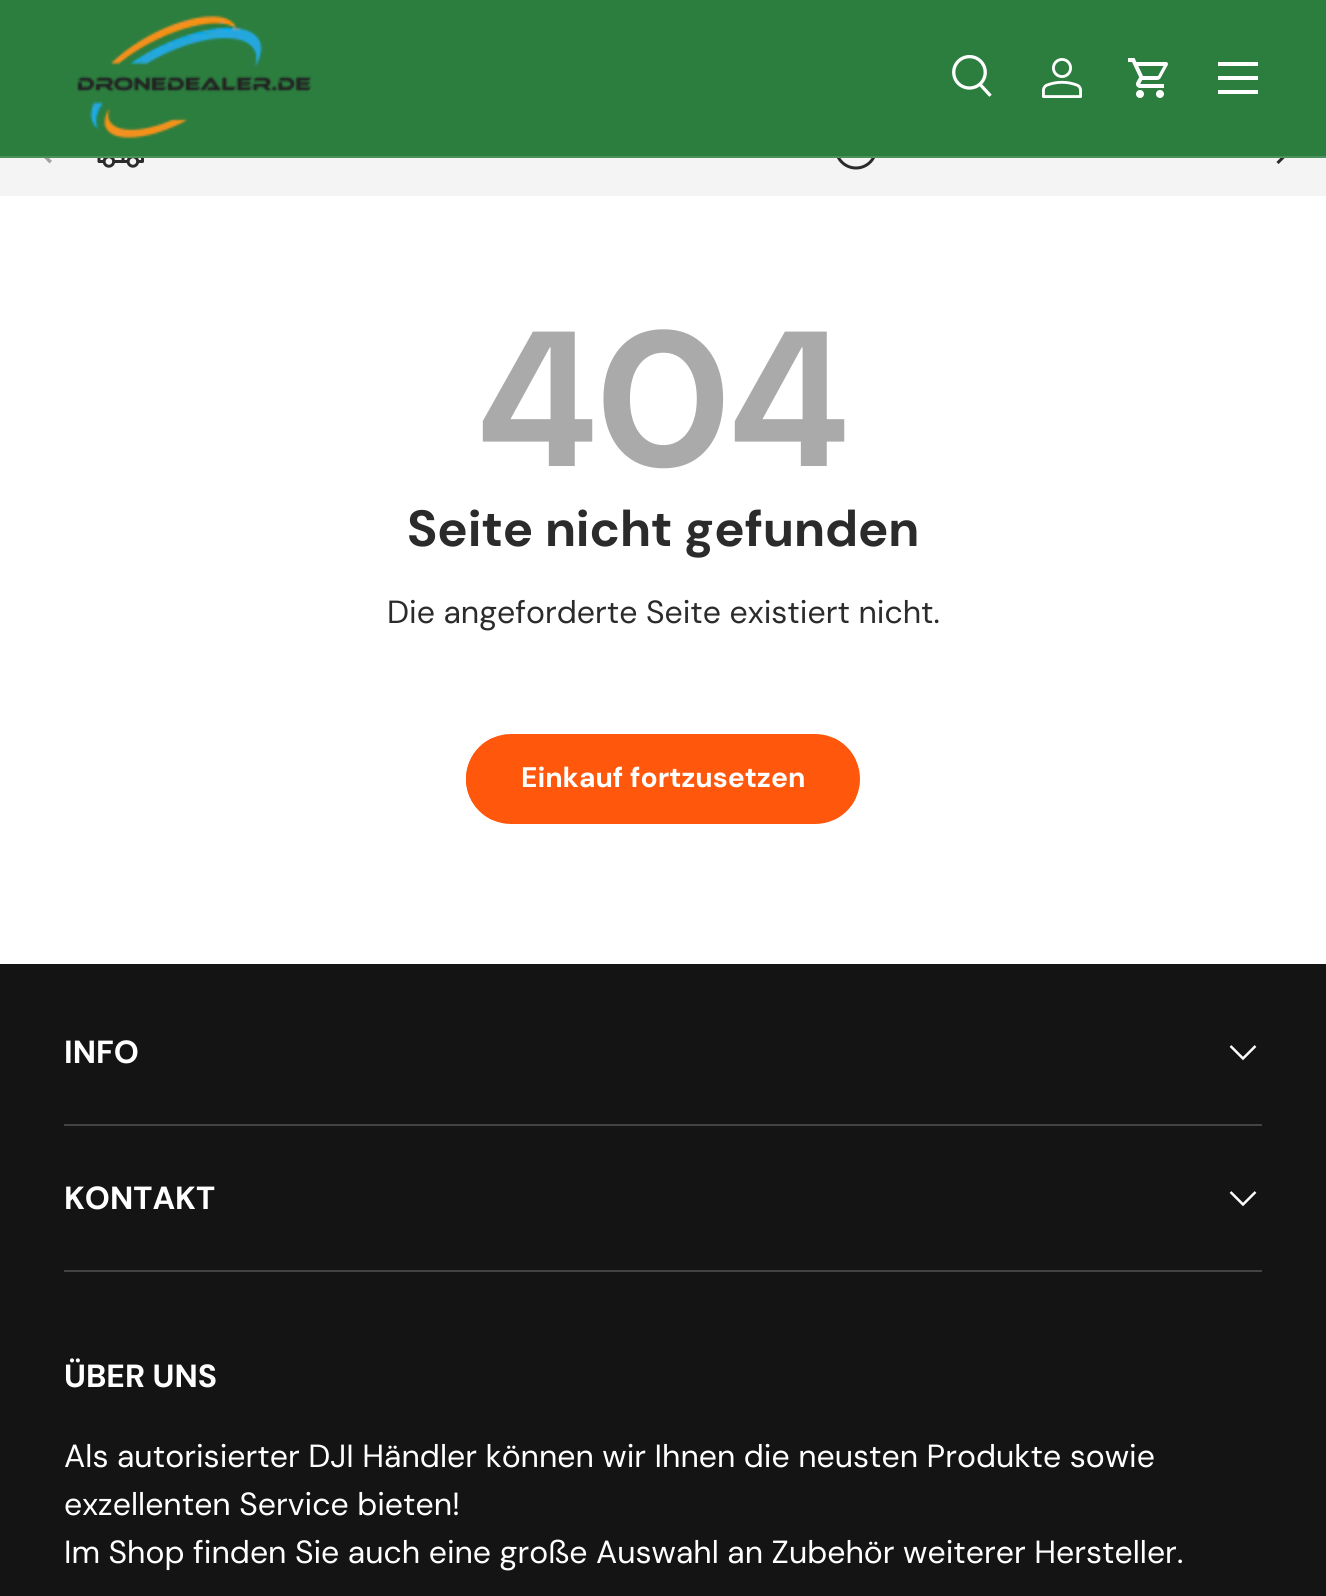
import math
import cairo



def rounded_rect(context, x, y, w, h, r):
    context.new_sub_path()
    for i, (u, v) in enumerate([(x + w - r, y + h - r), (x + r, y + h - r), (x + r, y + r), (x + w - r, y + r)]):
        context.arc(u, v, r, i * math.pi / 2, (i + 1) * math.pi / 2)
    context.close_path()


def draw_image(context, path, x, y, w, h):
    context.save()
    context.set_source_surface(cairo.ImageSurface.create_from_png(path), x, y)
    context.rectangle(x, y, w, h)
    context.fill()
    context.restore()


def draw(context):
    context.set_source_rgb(1, 1, 1)
    context.paint()
    context.set_source_rgb(244 / 255, 244 / 255, 244 / 255)
    context.rectangle(0, 158, 1326, 38)
    context.fill()
    context.arc(856, 148, 20, 0, 2 * math.pi)
    context.set_source_rgb(42 / 255, 43 / 255, 42 / 255)
    context.set_line_width(3)
    context.stroke()
    context.set_source_rgb(163 / 255, 164 / 255, 163 / 255)
    context.new_path()
    context.move_to(33.5, 147)
    context.line_to(49.5, 131)
    context.line_to(52, 133.5)
    context.line_to(38, 147)
    context.line_to(52, 161)
    context.line_to(49.5, 163.5)
    context.close_path()
    context.fill()
    context.new_path()
    context.move_to(1277.5, 133)
    context.line_to(1292.5, 148)
    context.line_to(1277.5, 163)
    context.set_source_rgb(42 / 255, 43 / 255, 42 / 255)
    context.stroke()
    context.set_source_rgb(44 / 255, 126 / 255, 63 / 255)
    context.rectangle(0, 0, 1326, 156)
    context.fill()
    context.set_source_rgb(76 / 255, 145 / 255, 92 / 255)
    context.rectangle(0, 156, 1326, 2)
    context.fill()
    draw_image(context, "images/1.png", 76, 15, 236, 124)
    draw_image(context, "images/2.png", 952, 55, 40, 42)
    draw_image(context, "images/3.png", 1042, 58, 40, 40)
    draw_image(context, "images/4.png", 1128, 58, 40, 40)
    context.set_source_rgb(1, 1, 1)
    context.rectangle(1218, 62, 40, 4)
    context.fill()
    context.rectangle(1218, 90, 40, 4)
    context.fill()
    context.rectangle(1218, 76, 40, 4)
    context.fill()
    draw_image(context, "images/5.png", 97, 158, 47, 10)
    context.save()
    rounded_rect(context, 466, 734, 394, 90, 45)
    context.clip()
    gradient = cairo.LinearGradient(-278, 641, 832, 917)
    gradient.add_color_stop_rgba(0.6, 1, 124 / 255, 64 / 255, 1)
    gradient.add_color_stop_rgba(0.6, 1, 88 / 255, 13 / 255, 1)
    gradient.add_color_stop_rgba(1, 1, 88 / 255, 13 / 255, 1)
    context.set_source(gradient)
    context.rectangle(466, 738, 390, 82)
    context.fill()
    context.restore()
    rounded_rect(context, 468, 736, 390, 86, 43)
    context.set_source_rgb(1, 88 / 255, 13 / 255)
    context.set_line_width(4)
    context.stroke()
    context.set_source_rgb(20 / 255, 20 / 255, 20 / 255)
    context.rectangle(0, 964, 1326, 632)
    context.fill()
    context.set_source_rgb(67 / 255, 67 / 255, 67 / 255)
    context.rectangle(64, 1124, 1198, 2)
    context.fill()
    context.new_path()
    context.move_to(1255.5, 1046)
    context.line_to(1243, 1058.5)
    context.line_to(1230.5, 1046)
    context.set_source_rgb(1, 1, 1)
    context.set_line_width(2.5)
    context.stroke()
    context.set_source_rgb(67 / 255, 67 / 255, 67 / 255)
    context.rectangle(64, 1270, 1198, 2)
    context.fill()
    context.new_path()
    context.move_to(1255.5, 1192)
    context.line_to(1243, 1204.5)
    context.line_to(1230.5, 1192)
    context.set_source_rgb(1, 1, 1)
    context.stroke()
    context.select_font_face("DM Sans", cairo.FontSlant.NORMAL, cairo.FontWeight.BOLD)
    context.set_font_size(192)
    context.set_source_rgb(170 / 255, 170 / 255, 170 / 255)
    context.move_to(478, 466)
    context.show_text("404")
    context.select_font_face("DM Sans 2", cairo.FontSlant.NORMAL, cairo.FontWeight.BOLD)
    context.set_font_size(50.75)
    context.set_source_rgb(42 / 255, 43 / 255, 42 / 255)
    context.move_to(407, 546)
    context.show_text("Seite nicht gefunden")
    context.select_font_face("DM Sans")
    context.set_font_size(32)
    context.move_to(387, 623)
    context.show_text("Die angeforderte Seite existiert nicht.")
    context.select_font_face("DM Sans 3", cairo.FontSlant.NORMAL, cairo.FontWeight.BOLD)
    context.set_font_size(28.25)
    context.set_source_rgb(1, 1, 1)
    context.move_to(521, 787)
    context.show_text("Einkauf fortzusetzen")
    context.select_font_face("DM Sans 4", cairo.FontSlant.NORMAL, cairo.FontWeight.BOLD)
    context.set_font_size(32)
    context.move_to(64, 1063)
    context.show_text("INFO")
    context.move_to(64, 1209)
    context.show_text("KONTAKT")
    context.move_to(64, 1387)
    context.show_text("ÜBER UNS")
    context.select_font_face("DM Sans")
    context.move_to(64, 1467)
    context.show_text("Als autorisierter DJI Händler können wir Ihnen die neusten Produkte sowie")
    context.move_to(64, 1515)
    context.show_text("exzellenten Service bieten!")
    context.move_to(64, 1563)
    context.show_text("Im Shop finden Sie auch eine große Auswahl an Zubehör weiterer Hersteller.")


surface = cairo.ImageSurface(cairo.Format.RGB24, 1326, 1596)
context = cairo.Context(surface)
options = cairo.FontOptions()
options.set_hint_metrics(cairo.HintMetrics.OFF)
options.set_hint_style(cairo.HintStyle.NONE)
context.set_font_options(options)
context.set_miter_limit(4)
draw(context)
surface.write_to_png("out.png")
